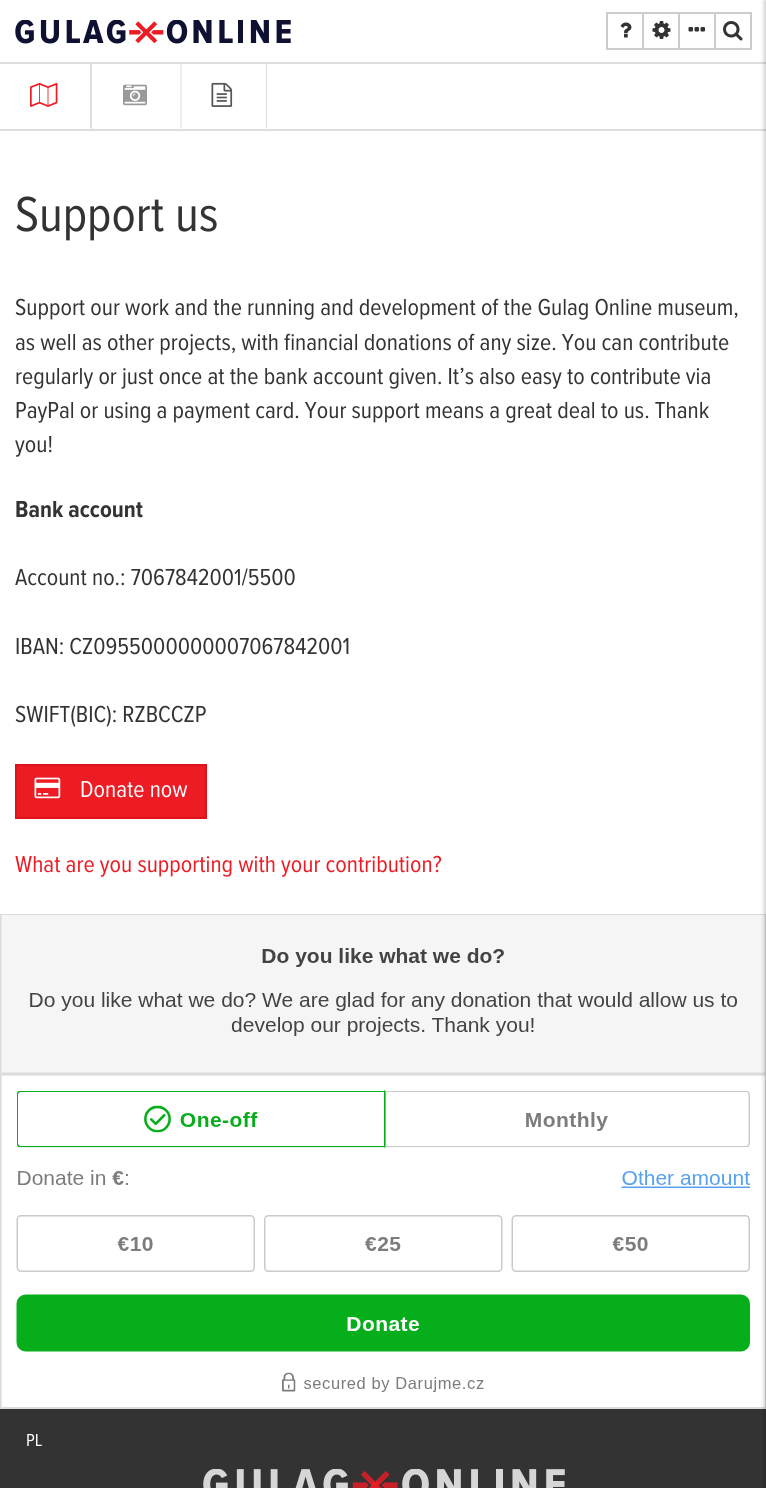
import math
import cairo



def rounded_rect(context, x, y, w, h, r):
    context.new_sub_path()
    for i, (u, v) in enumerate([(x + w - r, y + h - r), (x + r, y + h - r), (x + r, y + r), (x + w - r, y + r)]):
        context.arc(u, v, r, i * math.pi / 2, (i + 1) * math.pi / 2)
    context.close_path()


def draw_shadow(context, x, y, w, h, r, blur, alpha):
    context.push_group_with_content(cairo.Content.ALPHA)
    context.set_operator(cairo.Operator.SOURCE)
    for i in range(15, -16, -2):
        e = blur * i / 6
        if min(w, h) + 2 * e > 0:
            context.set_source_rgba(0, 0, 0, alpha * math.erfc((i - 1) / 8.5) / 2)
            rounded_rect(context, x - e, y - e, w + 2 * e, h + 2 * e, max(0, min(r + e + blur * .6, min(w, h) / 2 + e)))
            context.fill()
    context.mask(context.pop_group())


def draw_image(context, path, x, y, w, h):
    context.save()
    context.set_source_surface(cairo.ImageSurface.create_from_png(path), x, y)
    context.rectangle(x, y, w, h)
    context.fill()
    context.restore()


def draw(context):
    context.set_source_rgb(1, 1, 1)
    context.paint()
    context.set_source_rgb(221 / 255, 221 / 255, 221 / 255)
    context.rectangle(0, 129, 766, 2)
    context.fill()
    context.new_path()
    context.move_to(92, 63)
    context.line_to(92, 129)
    context.line_to(90, 128)
    context.line_to(90, 63)
    context.close_path()
    context.fill()
    draw_image(context, "images/1.png", 30, 82, 28, 25)
    context.set_source_rgb(238 / 255, 238 / 255, 238 / 255)
    context.new_path()
    context.move_to(182, 63)
    context.line_to(182, 129)
    context.line_to(180, 128)
    context.line_to(180, 63)
    context.close_path()
    context.fill()
    draw_image(context, "images/2.png", 123, 84, 24, 22)
    context.set_source_rgb(221 / 255, 221 / 255, 221 / 255)
    context.new_path()
    context.move_to(267, 63)
    context.line_to(267, 129)
    context.line_to(266, 128)
    context.line_to(266, 63)
    context.close_path()
    context.fill()
    draw_image(context, "images/3.png", 211, 82, 22, 25)
    context.set_source_rgb(237 / 255, 28 / 255, 36 / 255)
    context.rectangle(16, 765, 190, 53)
    context.fill_preserve()
    context.set_source_rgb(222 / 255, 18 / 255, 25 / 255)
    context.stroke()
    draw_image(context, "images/4.png", 34, 777, 27, 22)
    context.rectangle(1, 915, 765, 493)
    context.set_source_rgb(220 / 255, 220 / 255, 220 / 255)
    context.stroke()
    draw_image(context, "images/5.png", 1, 915, 764, 492)
    context.set_source_rgb(51 / 255, 51 / 255, 51 / 255)
    context.rectangle(0, 1409, 766, 79)
    context.fill()
    draw_image(context, "images/6.png", 203, 1469, 362, 19)
    context.set_source_rgb(221 / 255, 221 / 255, 221 / 255)
    context.rectangle(0, 62, 766, 2)
    context.fill()
    draw_image(context, "images/7.png", 15, 20, 276, 24)
    context.rectangle(607, 13, 36, 36)
    context.set_source_rgb(204 / 255, 204 / 255, 204 / 255)
    context.stroke()
    draw_image(context, "images/8.png", 620, 22, 12, 16)
    context.rectangle(643, 13, 36, 36)
    context.stroke()
    draw_image(context, "images/9.png", 652, 21, 19, 18)
    context.rectangle(679, 13, 36, 36)
    context.stroke()
    draw_image(context, "images/10.png", 688, 27, 17, 5)
    context.rectangle(715, 13, 36, 36)
    context.stroke()
    draw_image(context, "images/11.png", 723, 21, 20, 20)
    context.set_source_rgb(0, 0, 0)
    draw_shadow(context, 764, 0, 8, 1488, 0, 2, 0.2)
    context.select_font_face("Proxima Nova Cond")
    context.set_font_size(51)
    context.set_source_rgb(51 / 255, 51 / 255, 51 / 255)
    context.move_to(15, 231)
    context.show_text("Support us")
    context.set_font_size(24)
    context.move_to(15, 315)
    context.show_text("Support our work and the running and development of the Gulag Online museum,")
    context.move_to(15, 350)
    context.show_text("as well as other projects, with financial donations of any size. You can contribute")
    context.move_to(15, 384)
    context.show_text("regularly or just once at the bank account given. It’s also easy to contribute via")
    context.move_to(15, 418)
    context.show_text("PayPal or using a payment card. Your support means a great deal to us. Thank")
    context.move_to(15, 452)
    context.show_text("you!")
    context.select_font_face("Proxima Nova Cond", cairo.FontSlant.NORMAL, cairo.FontWeight.BOLD)
    context.move_to(15, 517)
    context.show_text("Bank account")
    context.select_font_face("Proxima Nova Cond")
    context.move_to(15, 585)
    context.show_text("Account no.: 7067842001/5500")
    context.move_to(15, 654)
    context.show_text("IBAN: CZ0955000000007067842001")
    context.move_to(15, 722)
    context.show_text("SWIFT(BIC): RZBCCZP")
    context.set_source_rgb(1, 1, 1)
    context.move_to(80, 797)
    context.show_text("Donate now")
    context.set_source_rgb(237 / 255, 28 / 255, 36 / 255)
    context.move_to(15, 872)
    context.show_text("What are you supporting with your contribution?")
    context.set_font_size(18)
    context.set_source_rgb(1, 1, 1)
    context.move_to(26, 1446)
    context.show_text("PL")


surface = cairo.ImageSurface(cairo.Format.RGB24, 766, 1488)
context = cairo.Context(surface)
options = cairo.FontOptions()
options.set_hint_metrics(cairo.HintMetrics.OFF)
options.set_hint_style(cairo.HintStyle.NONE)
context.set_font_options(options)
context.set_miter_limit(4)
draw(context)
surface.write_to_png("out.png")
